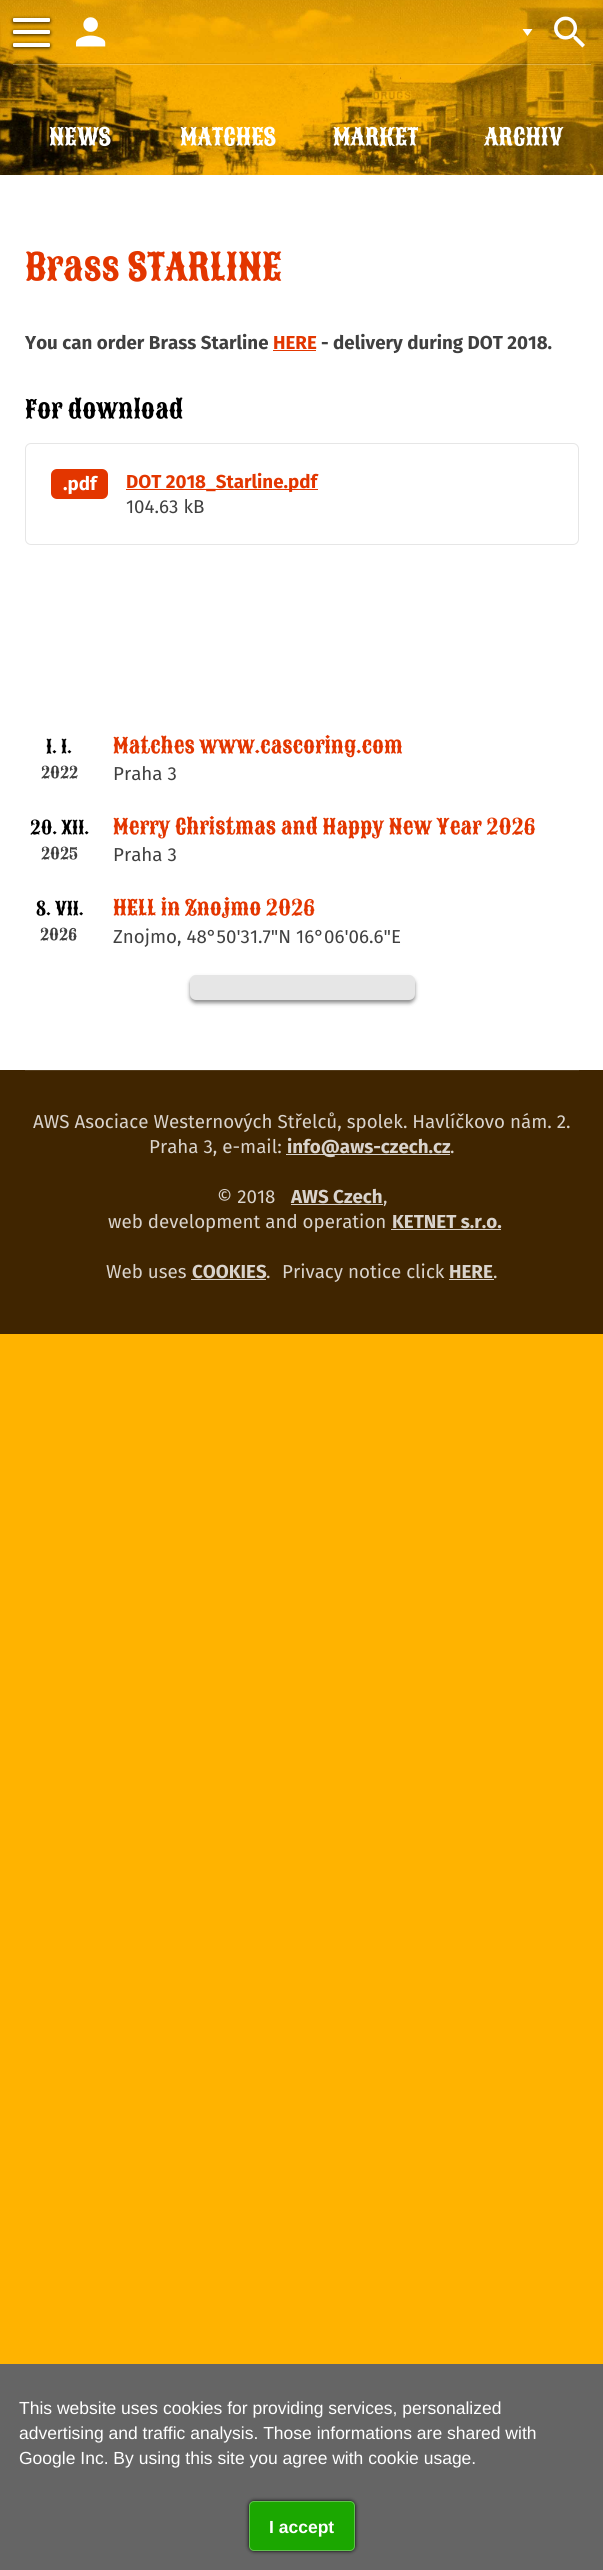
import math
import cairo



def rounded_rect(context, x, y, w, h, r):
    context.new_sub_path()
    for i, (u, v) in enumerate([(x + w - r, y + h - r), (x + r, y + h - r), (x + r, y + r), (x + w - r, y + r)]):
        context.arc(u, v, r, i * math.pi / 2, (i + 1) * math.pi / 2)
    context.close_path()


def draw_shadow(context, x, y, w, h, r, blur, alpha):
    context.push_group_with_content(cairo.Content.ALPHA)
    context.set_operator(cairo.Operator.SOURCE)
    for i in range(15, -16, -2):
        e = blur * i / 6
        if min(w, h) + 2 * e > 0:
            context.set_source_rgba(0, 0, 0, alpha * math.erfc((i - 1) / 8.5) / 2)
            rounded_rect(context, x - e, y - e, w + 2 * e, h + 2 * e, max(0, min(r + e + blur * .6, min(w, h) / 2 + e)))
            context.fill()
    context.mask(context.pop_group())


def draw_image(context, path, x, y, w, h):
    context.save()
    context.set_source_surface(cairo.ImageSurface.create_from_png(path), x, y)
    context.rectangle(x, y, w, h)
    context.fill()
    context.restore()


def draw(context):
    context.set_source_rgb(1, 179 / 255, 0)
    context.paint()
    draw_image(context, "images/1.png", 0, 0, 603, 175)
    context.set_source_rgba(64 / 255, 37 / 255, 0, 0.15)
    context.rectangle(13, 63, 578, 1)
    context.fill()
    context.set_source_rgb(0, 0, 0)
    draw_shadow(context, 13, 19, 37, 4, 1, 2, 0.85)
    context.set_source_rgb(1, 1, 1)
    rounded_rect(context, 13, 18, 37, 4, 1)
    context.fill()
    context.set_source_rgb(0, 0, 0)
    draw_shadow(context, 13, 31, 37, 4, 1, 2, 0.85)
    context.set_source_rgb(1, 1, 1)
    rounded_rect(context, 13, 30, 37, 4, 1)
    context.fill()
    context.set_source_rgb(0, 0, 0)
    draw_shadow(context, 13, 44, 37, 4, 1, 2, 0.85)
    context.set_source_rgb(1, 1, 1)
    rounded_rect(context, 13, 43, 37, 4, 1)
    context.fill()
    draw_image(context, "images/2.png", 76, 17, 30, 30)
    context.new_path()
    context.move_to(522.5, 29)
    context.line_to(532.5, 29)
    context.line_to(527.5, 36)
    context.close_path()
    context.fill()
    draw_image(context, "images/3.png", 554, 16, 31, 32)
    context.set_source_rgba(1, 1, 1, 0.25)
    context.rectangle(13, 64, 578, 1)
    context.fill()
    context.set_source_rgb(1, 1, 1)
    context.rectangle(0, 175, 603, 895)
    context.fill()
    context.set_source_rgb(227 / 255, 54 / 255, 0)
    context.rectangle(273, 350, 43, 1)
    context.fill()
    rounded_rect(context, 25.5, 443.5, 553, 101, 5.5)
    context.set_source_rgb(230 / 255, 230 / 255, 230 / 255)
    context.set_line_width(1)
    context.stroke()
    context.set_source_rgb(227 / 255, 54 / 255, 0)
    rounded_rect(context, 51, 469, 57, 30, 6)
    context.fill()
    context.rectangle(126, 489, 192, 1)
    context.fill()
    context.set_source_rgb(0, 0, 0)
    draw_shadow(context, 190, 978, 225, 25, 6, 2, 0.45)
    context.set_source_rgb(230 / 255, 230 / 255, 230 / 255)
    rounded_rect(context, 190, 975, 225, 25, 6)
    context.fill()
    context.set_source_rgb(64 / 255, 37 / 255, 0)
    context.rectangle(0, 1070, 603, 264)
    context.fill()
    context.set_source_rgb(83 / 255, 59 / 255, 26 / 255)
    context.rectangle(25, 1070, 554, 1)
    context.fill()
    context.set_source_rgb(217 / 255, 211 / 255, 204 / 255)
    context.rectangle(286, 1154, 164, 1)
    context.fill()
    context.rectangle(291, 1204, 92, 1)
    context.fill()
    context.rectangle(391, 1229, 110, 1)
    context.fill()
    context.rectangle(191, 1279, 75, 1)
    context.fill()
    context.rectangle(449, 1279, 45, 1)
    context.fill()
    context.set_source_rgb(101 / 255, 101 / 255, 101 / 255)
    context.rectangle(0, 2364, 603, 206)
    context.fill()
    context.set_source_rgb(0, 0, 0)
    draw_shadow(context, 249, 2501, 106, 50, 5, 2, 1)
    context.set_source_rgb(27 / 255, 167 / 255, 0)
    rounded_rect(context, 249, 2501, 106, 50, 5)
    context.fill()
    rounded_rect(context, 249.5, 2501.5, 105, 49, 4.5)
    context.set_source_rgba(1, 1, 1, 0.3)
    context.stroke()
    context.select_font_face("Sancreek")
    context.set_font_size(23.75)
    context.set_source_rgb(1, 1, 1)
    context.move_to(49, 145)
    context.show_text("NEWS")
    context.move_to(180, 145)
    context.show_text("MATCHES")
    context.move_to(333, 145)
    context.show_text("MARKET")
    context.move_to(484, 145)
    context.show_text("ARCHIV")
    context.set_font_size(37.5)
    context.set_source_rgb(227 / 255, 54 / 255, 0)
    context.move_to(25, 280)
    context.show_text("Brass STARLINE")
    context.select_font_face("Fira Sans", cairo.FontSlant.NORMAL, cairo.FontWeight.BOLD)
    context.set_font_size(18.75)
    context.set_source_rgb(64 / 255, 64 / 255, 64 / 255)
    context.move_to(25, 349)
    context.show_text("You can order Brass Starline")
    context.set_source_rgb(227 / 255, 54 / 255, 0)
    context.move_to(273, 349)
    context.show_text("HERE")
    context.set_source_rgb(64 / 255, 64 / 255, 64 / 255)
    context.move_to(321, 349)
    context.show_text("- delivery during DOT 2018.")
    context.select_font_face("Sancreek")
    context.set_font_size(25)
    context.set_source_rgb(0, 0, 0)
    context.move_to(25, 418)
    context.show_text("For download")
    context.select_font_face("Fira Sans", cairo.FontSlant.NORMAL, cairo.FontWeight.BOLD)
    context.set_font_size(18.75)
    context.set_source_rgb(1, 1, 1)
    context.move_to(63, 490)
    context.show_text(".pdf")
    context.set_source_rgb(227 / 255, 54 / 255, 0)
    context.move_to(126, 488)
    context.show_text("DOT 2018_Starline.pdf")
    context.select_font_face("Fira Sans")
    context.set_source_rgb(64 / 255, 64 / 255, 64 / 255)
    context.move_to(126, 513)
    context.show_text("104.63 kB")
    context.select_font_face("Sancreek")
    context.set_source_rgb(0, 0, 0)
    context.move_to(46, 753)
    context.show_text("1. I.")
    context.set_font_size(16)
    context.set_source_rgb(64 / 255, 64 / 255, 64 / 255)
    context.move_to(41, 778)
    context.show_text("2022")
    context.set_font_size(21.25)
    context.set_source_rgb(227 / 255, 54 / 255, 0)
    context.move_to(113, 753)
    context.show_text("Matches www.cascoring.com")
    context.select_font_face("Fira Sans")
    context.set_font_size(18.75)
    context.set_source_rgb(64 / 255, 64 / 255, 64 / 255)
    context.move_to(113, 780)
    context.show_text("Praha 3")
    context.select_font_face("Sancreek")
    context.set_source_rgb(0, 0, 0)
    context.move_to(30, 834)
    context.show_text("20. XII.")
    context.set_font_size(16)
    context.set_source_rgb(64 / 255, 64 / 255, 64 / 255)
    context.move_to(41, 859)
    context.show_text("2025")
    context.set_font_size(21.25)
    context.set_source_rgb(227 / 255, 54 / 255, 0)
    context.move_to(113, 834)
    context.show_text("Merry Christmas and Happy New Year 2026")
    context.select_font_face("Fira Sans")
    context.set_font_size(18.75)
    context.set_source_rgb(64 / 255, 64 / 255, 64 / 255)
    context.move_to(113, 861)
    context.show_text("Praha 3")
    context.select_font_face("Sancreek")
    context.set_source_rgb(0, 0, 0)
    context.move_to(36, 915)
    context.show_text("8. VII.")
    context.set_font_size(16)
    context.set_source_rgb(64 / 255, 64 / 255, 64 / 255)
    context.move_to(40, 940)
    context.show_text("2026")
    context.set_font_size(21.25)
    context.set_source_rgb(227 / 255, 54 / 255, 0)
    context.move_to(113, 915)
    context.show_text("HELL in Znojmo 2026")
    context.select_font_face("Fira Sans")
    context.set_font_size(18.75)
    context.set_source_rgb(64 / 255, 64 / 255, 64 / 255)
    context.move_to(113, 943)
    context.show_text("Znojmo, 48°50'31.7\"N 16°06'06.6\"E")
    context.set_source_rgb(217 / 255, 211 / 255, 204 / 255)
    context.move_to(33, 1128)
    context.show_text("AWS Asociace Westernových Střelců, spolek. Havlíčkovo nám. 2.")
    context.move_to(149, 1153)
    context.show_text("Praha 3, e-mail:")
    context.select_font_face("Fira Sans", cairo.FontSlant.NORMAL, cairo.FontWeight.BOLD)
    context.move_to(287, 1153)
    context.show_text("info@aws-czech.cz")
    context.select_font_face("Fira Sans")
    context.move_to(450, 1153)
    context.show_text(".")
    context.move_to(217, 1203)
    context.show_text("© 2018")
    context.select_font_face("Fira Sans", cairo.FontSlant.NORMAL, cairo.FontWeight.BOLD)
    context.move_to(291, 1203)
    context.show_text("AWS Czech")
    context.select_font_face("Fira Sans")
    context.move_to(383, 1203)
    context.show_text(",")
    context.move_to(108, 1228)
    context.show_text("web development and operation")
    context.select_font_face("Fira Sans", cairo.FontSlant.NORMAL, cairo.FontWeight.BOLD)
    context.move_to(392, 1228)
    context.show_text("KETNET s.r.o.")
    context.select_font_face("Fira Sans")
    context.move_to(106, 1278)
    context.show_text("Web uses")
    context.select_font_face("Fira Sans", cairo.FontSlant.NORMAL, cairo.FontWeight.BOLD)
    context.move_to(192, 1278)
    context.show_text("COOKIES")
    context.select_font_face("Fira Sans")
    context.move_to(266, 1278)
    context.show_text(".")
    context.move_to(282, 1278)
    context.show_text("Privacy notice click")
    context.select_font_face("Fira Sans", cairo.FontSlant.NORMAL, cairo.FontWeight.BOLD)
    context.move_to(449, 1278)
    context.show_text("HERE")
    context.select_font_face("Fira Sans")
    context.move_to(493, 1278)
    context.show_text(".")
    context.select_font_face("Liberation Sans")
    context.set_font_size(17.5)
    context.set_source_rgb(1, 1, 1)
    context.move_to(19, 2414)
    context.show_text("This website uses cookies for providing services, personalized")
    context.move_to(19, 2439)
    context.show_text("advertising and traffic analysis. Those informations are shared with")
    context.move_to(19, 2464)
    context.show_text("Google Inc. By using this site you agree with cookie usage.")
    context.select_font_face("Liberation Sans", cairo.FontSlant.NORMAL, cairo.FontWeight.BOLD)
    context.move_to(269, 2533)
    context.show_text("I accept")


surface = cairo.ImageSurface(cairo.Format.RGB24, 603, 2570)
context = cairo.Context(surface)
options = cairo.FontOptions()
options.set_hint_metrics(cairo.HintMetrics.OFF)
options.set_hint_style(cairo.HintStyle.NONE)
context.set_font_options(options)
context.set_miter_limit(4)
draw(context)
surface.write_to_png("out.png")
